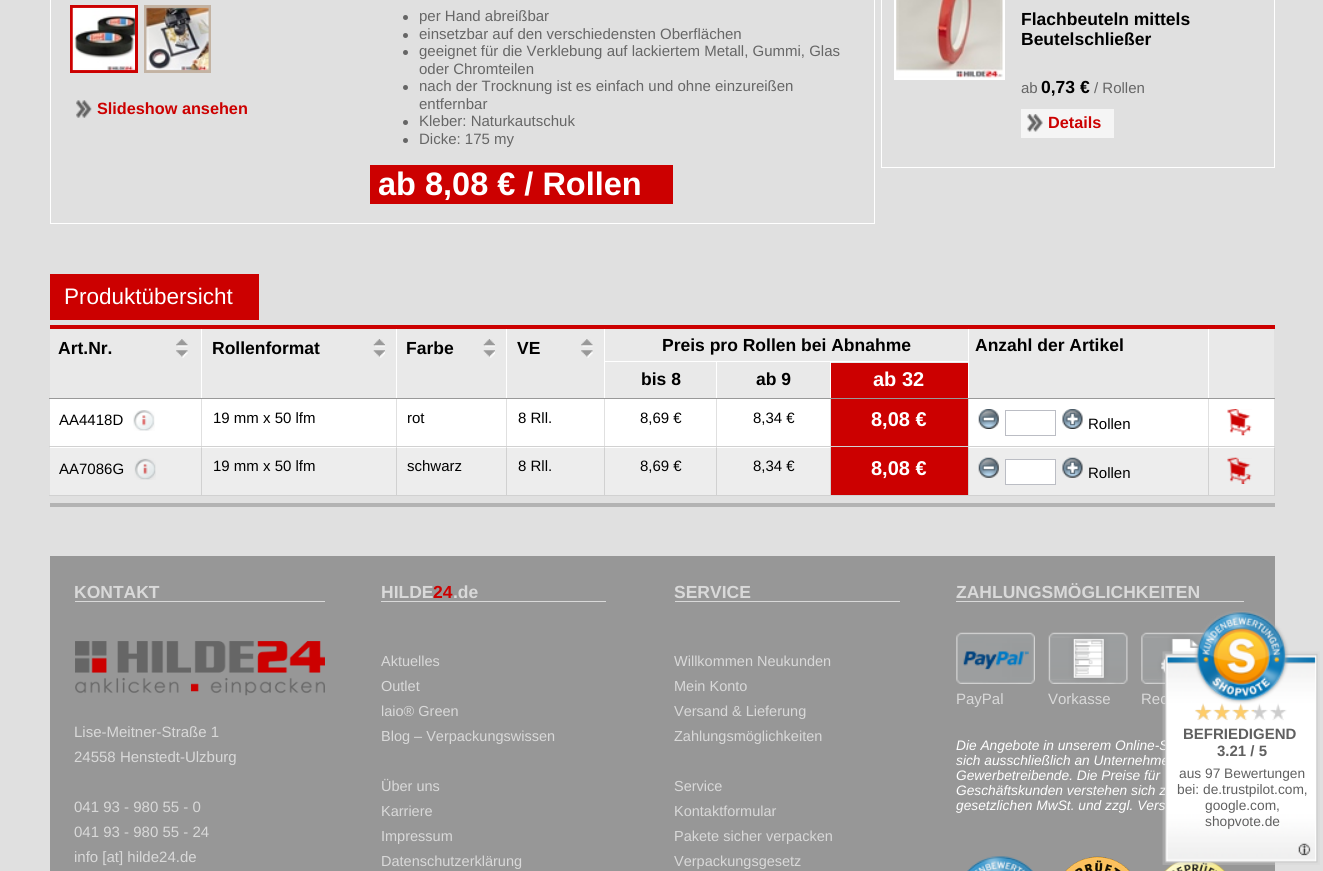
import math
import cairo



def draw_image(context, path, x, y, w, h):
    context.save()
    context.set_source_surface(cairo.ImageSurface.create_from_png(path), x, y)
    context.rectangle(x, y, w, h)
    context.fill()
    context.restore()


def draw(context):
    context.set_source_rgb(224 / 255, 224 / 255, 224 / 255)
    context.paint()
    context.rectangle(50.5, -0.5, 824, 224)
    context.set_source_rgb(1, 1, 1)
    context.set_line_width(1)
    context.stroke()
    context.rectangle(71.5, 6.5, 65, 65)
    context.set_source_rgb(204 / 255, 0, 0)
    context.set_line_width(3)
    context.stroke()
    draw_image(context, "images/1.png", 72, 7, 63, 64)
    context.rectangle(145.5, 6.5, 64, 65)
    context.set_source_rgb(195 / 255, 179 / 255, 163 / 255)
    context.stroke()
    draw_image(context, "images/2.png", 146, 7, 63, 64)
    draw_image(context, "images/3.png", 76, 100, 16, 18)
    context.set_source_rgb(102 / 255, 102 / 255, 102 / 255)
    context.arc(405.5, 17.5, 2.5, 0, 2 * math.pi)
    context.fill()
    context.arc(405.5, 35.5, 2.5, 0, 2 * math.pi)
    context.fill()
    context.arc(405.5, 52.5, 2.5, 0, 2 * math.pi)
    context.fill()
    context.arc(405.5, 87.5, 2.5, 0, 2 * math.pi)
    context.fill()
    context.arc(405.5, 122.5, 2.5, 0, 2 * math.pi)
    context.fill()
    context.arc(405.5, 140.5, 2.5, 0, 2 * math.pi)
    context.fill()
    context.set_source_rgb(204 / 255, 0, 0)
    context.rectangle(370, 165, 303, 39)
    context.fill()
    context.rectangle(881.5, -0.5, 393, 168)
    context.set_source_rgb(1, 1, 1)
    context.set_line_width(1)
    context.stroke()
    context.rectangle(895.5, -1.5, 108, 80)
    context.set_line_width(3)
    context.stroke()
    draw_image(context, "images/4.png", 896, 0, 107, 78)
    context.set_source_rgb(245 / 255, 245 / 255, 245 / 255)
    context.rectangle(1021, 109, 93, 29)
    context.fill()
    draw_image(context, "images/5.png", 1027, 114, 16, 18)
    context.set_source_rgb(204 / 255, 0, 0)
    context.rectangle(50, 274, 209, 46)
    context.fill()
    context.rectangle(50, 325, 1225, 4)
    context.fill()
    context.set_source_rgb(179 / 255, 179 / 255, 179 / 255)
    context.rectangle(50, 503, 1225, 4)
    context.fill()
    context.set_source_rgb(233 / 255, 233 / 255, 233 / 255)
    context.rectangle(50, 329, 346, 69)
    context.fill()
    context.rectangle(397, 329, 207, 69)
    context.fill()
    context.rectangle(605, 329, 363, 34)
    context.fill()
    context.rectangle(605, 363, 225, 35)
    context.fill()
    context.set_source_rgb(1, 1, 1)
    context.rectangle(50, 399, 1224, 49)
    context.fill()
    context.set_source_rgb(209 / 255, 209 / 255, 209 / 255)
    context.rectangle(1274, 446, 1, 50)
    context.fill()
    context.set_source_rgb(224 / 255, 224 / 255, 224 / 255)
    context.rectangle(1274, 446, 1, 2)
    context.fill()
    context.set_source_rgb(237 / 255, 237 / 255, 237 / 255)
    context.rectangle(50, 448, 1224, 47)
    context.fill()
    context.set_source_rgb(209 / 255, 209 / 255, 209 / 255)
    context.rectangle(1208, 495, 67, 1)
    context.fill()
    context.rectangle(1208, 446, 1, 50)
    context.fill()
    context.rectangle(1208, 446, 67, 1)
    context.fill()
    context.set_source_rgb(224 / 255, 224 / 255, 224 / 255)
    context.rectangle(1208, 398, 1, 50)
    context.fill()
    context.set_source_rgb(209 / 255, 209 / 255, 209 / 255)
    context.rectangle(968, 495, 241, 1)
    context.fill()
    context.rectangle(968, 446, 1, 50)
    context.fill()
    context.rectangle(968, 446, 241, 1)
    context.fill()
    context.set_source_rgb(224 / 255, 224 / 255, 224 / 255)
    context.rectangle(968, 398, 1, 50)
    context.fill()
    context.set_source_rgb(1, 1, 1)
    context.rectangle(968, 329, 1, 70)
    context.fill()
    context.set_source_rgb(204 / 255, 0, 0)
    context.rectangle(831, 399, 137, 49)
    context.fill()
    context.set_source_rgb(209 / 255, 209 / 255, 209 / 255)
    context.rectangle(830, 495, 139, 1)
    context.fill()
    context.rectangle(830, 446, 1, 50)
    context.fill()
    context.rectangle(830, 446, 139, 1)
    context.fill()
    context.set_source_rgb(224 / 255, 224 / 255, 224 / 255)
    context.rectangle(830, 398, 1, 50)
    context.fill()
    context.set_source_rgb(153 / 255, 153 / 255, 153 / 255)
    context.rectangle(830, 398, 139, 1)
    context.fill()
    context.set_source_rgb(1, 1, 1)
    context.rectangle(830, 361, 1, 38)
    context.fill()
    context.set_source_rgb(209 / 255, 209 / 255, 209 / 255)
    context.rectangle(716, 495, 115, 1)
    context.fill()
    context.rectangle(716, 446, 1, 50)
    context.fill()
    context.rectangle(716, 446, 115, 1)
    context.fill()
    context.set_source_rgb(224 / 255, 224 / 255, 224 / 255)
    context.rectangle(716, 398, 1, 50)
    context.fill()
    context.set_source_rgb(153 / 255, 153 / 255, 153 / 255)
    context.rectangle(716, 398, 115, 1)
    context.fill()
    context.set_source_rgb(1, 1, 1)
    context.rectangle(716, 361, 1, 38)
    context.fill()
    context.rectangle(604, 361, 365, 1)
    context.fill()
    context.set_source_rgb(209 / 255, 209 / 255, 209 / 255)
    context.rectangle(604, 495, 114, 1)
    context.fill()
    context.rectangle(604, 446, 1, 50)
    context.fill()
    context.rectangle(604, 446, 114, 1)
    context.fill()
    context.set_source_rgb(224 / 255, 224 / 255, 224 / 255)
    context.rectangle(604, 398, 1, 50)
    context.fill()
    context.set_source_rgb(153 / 255, 153 / 255, 153 / 255)
    context.rectangle(604, 398, 114, 1)
    context.fill()
    context.set_source_rgb(1, 1, 1)
    context.rectangle(604, 329, 1, 70)
    context.fill()
    context.set_source_rgb(209 / 255, 209 / 255, 209 / 255)
    context.rectangle(506, 495, 99, 1)
    context.fill()
    context.rectangle(506, 446, 1, 50)
    context.fill()
    context.rectangle(506, 446, 99, 1)
    context.fill()
    context.set_source_rgb(224 / 255, 224 / 255, 224 / 255)
    context.rectangle(506, 398, 1, 50)
    context.fill()
    context.set_source_rgb(153 / 255, 153 / 255, 153 / 255)
    context.rectangle(506, 398, 99, 1)
    context.fill()
    context.set_source_rgb(1, 1, 1)
    context.rectangle(506, 329, 1, 70)
    context.fill()
    context.set_source_rgb(209 / 255, 209 / 255, 209 / 255)
    context.rectangle(396, 495, 112, 1)
    context.fill()
    context.rectangle(396, 446, 1, 50)
    context.fill()
    context.rectangle(396, 446, 112, 1)
    context.fill()
    context.set_source_rgb(224 / 255, 224 / 255, 224 / 255)
    context.rectangle(396, 398, 1, 50)
    context.fill()
    context.set_source_rgb(153 / 255, 153 / 255, 153 / 255)
    context.rectangle(396, 398, 112, 1)
    context.fill()
    context.set_source_rgb(1, 1, 1)
    context.rectangle(396, 329, 1, 70)
    context.fill()
    context.set_source_rgb(209 / 255, 209 / 255, 209 / 255)
    context.rectangle(201, 495, 197, 1)
    context.fill()
    context.rectangle(201, 446, 1, 50)
    context.fill()
    context.rectangle(201, 446, 197, 1)
    context.fill()
    context.set_source_rgb(224 / 255, 224 / 255, 224 / 255)
    context.rectangle(201, 398, 1, 50)
    context.fill()
    context.set_source_rgb(153 / 255, 153 / 255, 153 / 255)
    context.rectangle(201, 398, 197, 1)
    context.fill()
    context.set_source_rgb(1, 1, 1)
    context.rectangle(201, 329, 1, 70)
    context.fill()
    context.set_source_rgb(153 / 255, 153 / 255, 153 / 255)
    context.rectangle(49, 398, 154, 1)
    context.fill()
    draw_image(context, "images/6.png", 176, 339, 12, 8)
    draw_image(context, "images/7.png", 176, 350, 12, 8)
    draw_image(context, "images/8.png", 373, 339, 12, 8)
    draw_image(context, "images/9.png", 373, 350, 12, 8)
    draw_image(context, "images/10.png", 483, 339, 12, 8)
    draw_image(context, "images/11.png", 483, 350, 12, 8)
    draw_image(context, "images/6.png", 581, 339, 12, 8)
    draw_image(context, "images/7.png", 581, 350, 12, 8)
    context.set_source_rgb(233 / 255, 233 / 255, 233 / 255)
    context.rectangle(969, 329, 239, 69)
    context.fill()
    context.set_source_rgb(153 / 255, 153 / 255, 153 / 255)
    context.rectangle(1208, 398, 67, 1)
    context.fill()
    context.set_source_rgb(1, 1, 1)
    context.rectangle(1208, 329, 1, 70)
    context.fill()
    context.set_source_rgb(153 / 255, 153 / 255, 153 / 255)
    context.rectangle(968, 398, 241, 1)
    context.fill()
    context.set_source_rgb(233 / 255, 233 / 255, 233 / 255)
    context.rectangle(1209, 329, 65, 69)
    context.fill()
    context.set_source_rgb(204 / 255, 0, 0)
    context.rectangle(831, 363, 137, 35)
    context.fill()
    context.set_source_rgb(209 / 255, 209 / 255, 209 / 255)
    context.rectangle(49, 446, 154, 1)
    context.fill()
    draw_image(context, "images/12.png", 133, 410, 22, 21)
    draw_image(context, "images/13.png", 978, 409, 21, 20)
    context.rectangle(1005.5, 410.5, 50, 25)
    context.set_source_rgb(187 / 255, 189 / 255, 196 / 255)
    context.set_line_width(1)
    context.stroke()
    draw_image(context, "images/14.png", 1062, 409, 21, 20)
    draw_image(context, "images/15.png", 1227, 409, 25, 27)
    context.set_source_rgb(209 / 255, 209 / 255, 209 / 255)
    context.rectangle(49, 495, 154, 1)
    context.fill()
    draw_image(context, "images/16.png", 134, 458, 22, 22)
    context.set_source_rgb(204 / 255, 0, 0)
    context.rectangle(831, 448, 137, 47)
    context.fill()
    draw_image(context, "images/17.png", 978, 457, 21, 21)
    context.set_source_rgb(1, 1, 1)
    context.rectangle(1005.5, 459.5, 50, 25)
    context.fill_preserve()
    context.set_source_rgb(187 / 255, 189 / 255, 196 / 255)
    context.stroke()
    draw_image(context, "images/18.png", 1062, 457, 21, 21)
    draw_image(context, "images/19.png", 1227, 457, 25, 27)
    context.set_source_rgb(151 / 255, 151 / 255, 151 / 255)
    context.rectangle(50, 556, 1225, 315)
    context.fill()
    context.set_source_rgb(217 / 255, 217 / 255, 217 / 255)
    context.rectangle(75, 601, 250, 1)
    context.fill()
    draw_image(context, "images/20.png", 75, 641, 250, 55)
    context.rectangle(381, 601, 225, 1)
    context.fill()
    context.rectangle(675, 601, 225, 1)
    context.fill()
    context.rectangle(956, 601, 288, 1)
    context.fill()
    draw_image(context, "images/21.png", 956, 632, 79, 52)
    draw_image(context, "images/22.png", 1048, 632, 80, 52)
    draw_image(context, "images/23.png", 1141, 632, 66, 52)
    draw_image(context, "images/24.png", 967, 856, 66, 15)
    draw_image(context, "images/25.png", 1065, 856, 65, 15)
    draw_image(context, "images/26.png", 1164, 861, 61, 10)
    context.select_font_face("Liberation Sans", cairo.FontSlant.NORMAL, cairo.FontWeight.BOLD)
    context.set_font_size(16.25)
    context.set_source_rgb(204 / 255, 0, 0)
    context.move_to(97, 114)
    context.show_text("Slideshow ansehen")
    context.select_font_face("Liberation Sans")
    context.set_font_size(15)
    context.set_source_rgb(102 / 255, 102 / 255, 102 / 255)
    context.move_to(419, 21)
    context.show_text("per Hand abreißbar")
    context.move_to(419, 39)
    context.show_text("einsetzbar auf den verschiedensten Oberflächen")
    context.move_to(419, 56)
    context.show_text("geeignet für die Verklebung auf lackiertem Metall, Gummi, Glas")
    context.move_to(419, 74)
    context.show_text("oder Chromteilen")
    context.move_to(419, 91)
    context.show_text("nach der Trocknung ist es einfach und ohne einzureißen")
    context.move_to(419, 109)
    context.show_text("entfernbar")
    context.move_to(419, 126)
    context.show_text("Kleber: Naturkautschuk")
    context.move_to(419, 144)
    context.show_text("Dicke: 175 my")
    context.select_font_face("Liberation Sans", cairo.FontSlant.NORMAL, cairo.FontWeight.BOLD)
    context.set_font_size(32.5)
    context.set_source_rgb(1, 1, 1)
    context.move_to(378, 195)
    context.show_text("ab 8,08 € / Rollen")
    context.set_font_size(17.5)
    context.set_source_rgb(0, 0, 0)
    context.move_to(1021, 25)
    context.show_text("Flachbeuteln mittels")
    context.move_to(1021, 45)
    context.show_text("Beutelschließer")
    context.select_font_face("Liberation Sans")
    context.set_font_size(15)
    context.set_source_rgb(102 / 255, 102 / 255, 102 / 255)
    context.move_to(1021, 93)
    context.show_text("ab")
    context.select_font_face("Liberation Sans", cairo.FontSlant.NORMAL, cairo.FontWeight.BOLD)
    context.set_font_size(17.5)
    context.set_source_rgb(0, 0, 0)
    context.move_to(1041, 93)
    context.show_text("0,73 €")
    context.select_font_face("Liberation Sans")
    context.set_font_size(15)
    context.set_source_rgb(102 / 255, 102 / 255, 102 / 255)
    context.move_to(1094, 93)
    context.show_text("/ Rollen")
    context.select_font_face("Liberation Sans", cairo.FontSlant.NORMAL, cairo.FontWeight.BOLD)
    context.set_font_size(16.25)
    context.set_source_rgb(204 / 255, 0, 0)
    context.move_to(1048, 128)
    context.show_text("Details")
    context.select_font_face("Liberation Sans")
    context.set_font_size(22.5)
    context.set_source_rgb(1, 1, 1)
    context.move_to(64, 304)
    context.show_text("Produktübersicht")
    context.select_font_face("Liberation Sans", cairo.FontSlant.NORMAL, cairo.FontWeight.BOLD)
    context.set_font_size(17.5)
    context.set_source_rgb(0, 0, 0)
    context.move_to(58, 354)
    context.show_text("Art.Nr.")
    context.move_to(212, 354)
    context.show_text("Rollenformat")
    context.move_to(406, 354)
    context.show_text("Farbe")
    context.move_to(517, 354)
    context.show_text("VE")
    context.move_to(662, 351)
    context.show_text("Preis pro Rollen bei Abnahme")
    context.move_to(975, 351)
    context.show_text("Anzahl der Artikel")
    context.move_to(641, 385)
    context.show_text("bis 8")
    context.move_to(756, 385)
    context.show_text("ab 9")
    context.set_font_size(20)
    context.set_source_rgb(1, 1, 1)
    context.move_to(873, 386)
    context.show_text("ab 32")
    context.select_font_face("Liberation Sans")
    context.set_font_size(15)
    context.set_source_rgb(0, 0, 0)
    context.move_to(59, 425)
    context.show_text("AA4418D")
    context.move_to(213, 423)
    context.show_text("19 mm x 50 lfm")
    context.move_to(407, 423)
    context.show_text("rot")
    context.move_to(518, 423)
    context.show_text("8 Rll.")
    context.move_to(640, 423)
    context.show_text("8,69 €")
    context.move_to(753, 423)
    context.show_text("8,34 €")
    context.select_font_face("Liberation Sans", cairo.FontSlant.NORMAL, cairo.FontWeight.BOLD)
    context.set_font_size(20)
    context.set_source_rgb(1, 1, 1)
    context.move_to(871, 426)
    context.show_text("8,08 €")
    context.select_font_face("Liberation Sans")
    context.set_font_size(15)
    context.set_source_rgb(0, 0, 0)
    context.move_to(1088, 429)
    context.show_text("Rollen")
    context.move_to(59, 474)
    context.show_text("AA7086G")
    context.move_to(213, 471)
    context.show_text("19 mm x 50 lfm")
    context.move_to(407, 471)
    context.show_text("schwarz")
    context.move_to(518, 471)
    context.show_text("8 Rll.")
    context.move_to(640, 471)
    context.show_text("8,69 €")
    context.move_to(753, 471)
    context.show_text("8,34 €")
    context.select_font_face("Liberation Sans", cairo.FontSlant.NORMAL, cairo.FontWeight.BOLD)
    context.set_font_size(20)
    context.set_source_rgb(1, 1, 1)
    context.move_to(871, 475)
    context.show_text("8,08 €")
    context.select_font_face("Liberation Sans")
    context.set_font_size(15)
    context.set_source_rgb(0, 0, 0)
    context.move_to(1088, 478)
    context.show_text("Rollen")
    context.select_font_face("Liberation Sans", cairo.FontSlant.NORMAL, cairo.FontWeight.BOLD)
    context.set_font_size(17.5)
    context.set_source_rgb(217 / 255, 217 / 255, 217 / 255)
    context.move_to(74, 598)
    context.show_text("KONTAKT")
    context.select_font_face("Liberation Sans")
    context.set_font_size(15)
    context.move_to(74, 737)
    context.show_text("Lise-Meitner-Straße 1")
    context.move_to(74, 762)
    context.show_text("24558 Henstedt-Ulzburg")
    context.move_to(74, 812)
    context.show_text("041 93 - 980 55 - 0")
    context.move_to(74, 837)
    context.show_text("041 93 - 980 55 - 24")
    context.move_to(74, 862)
    context.show_text("info [at] hilde24.de")
    context.select_font_face("Liberation Sans", cairo.FontSlant.NORMAL, cairo.FontWeight.BOLD)
    context.set_font_size(17.5)
    context.move_to(381, 598)
    context.show_text("HILDE")
    context.set_source_rgb(204 / 255, 0, 0)
    context.move_to(433, 598)
    context.show_text("24")
    context.set_source_rgb(217 / 255, 217 / 255, 217 / 255)
    context.move_to(453, 598)
    context.show_text(".de")
    context.select_font_face("Liberation Sans")
    context.set_font_size(14.5)
    context.move_to(381, 666)
    context.show_text("Aktuelles")
    context.move_to(381, 691)
    context.show_text("Outlet")
    context.move_to(381, 716)
    context.show_text("laio® Green")
    context.move_to(381, 741)
    context.show_text("Blog – Verpackungswissen")
    context.move_to(381, 791)
    context.show_text("Über uns")
    context.move_to(381, 816)
    context.show_text("Karriere")
    context.move_to(381, 841)
    context.show_text("Impressum")
    context.move_to(381, 866)
    context.show_text("Datenschutzerklärung")
    context.select_font_face("Liberation Sans", cairo.FontSlant.NORMAL, cairo.FontWeight.BOLD)
    context.set_font_size(17.5)
    context.move_to(674, 598)
    context.show_text("SERVICE")
    context.select_font_face("Liberation Sans")
    context.set_font_size(14.5)
    context.move_to(674, 666)
    context.show_text("Willkommen Neukunden")
    context.move_to(674, 691)
    context.show_text("Mein Konto")
    context.move_to(674, 716)
    context.show_text("Versand & Lieferung")
    context.move_to(674, 741)
    context.show_text("Zahlungsmöglichkeiten")
    context.move_to(674, 791)
    context.show_text("Service")
    context.move_to(674, 816)
    context.show_text("Kontaktformular")
    context.move_to(674, 841)
    context.show_text("Pakete sicher verpacken")
    context.move_to(674, 866)
    context.show_text("Verpackungsgesetz")
    context.select_font_face("Liberation Sans", cairo.FontSlant.NORMAL, cairo.FontWeight.BOLD)
    context.set_font_size(17.5)
    context.move_to(956, 598)
    context.show_text("ZAHLUNGSMÖGLICHKEITEN")
    context.select_font_face("Liberation Sans")
    context.set_font_size(15)
    context.move_to(956, 704)
    context.show_text("PayPal")
    context.move_to(1048, 704)
    context.show_text("Vorkasse")
    context.move_to(1141, 704)
    context.show_text("Rec")
    context.select_font_face("Liberation Sans", cairo.FontSlant.ITALIC)
    context.set_font_size(13.75)
    context.set_source_rgb(1, 1, 1)
    context.move_to(956, 750)
    context.show_text("Die Angebote in unserem Online-S")
    context.move_to(956, 765)
    context.show_text("sich ausschließlich an Unternehme")
    context.move_to(956, 780)
    context.show_text("Gewerbetreibende. Die Preise für")
    context.move_to(956, 795)
    context.show_text("Geschäftskunden verstehen sich z")
    context.move_to(956, 810)
    context.show_text("gesetzlichen MwSt. und zzgl. Vers")
    draw_image(context, "images/27.png", 1162, 611, 158, 254)
    draw_image(context, "images/28.png", 1195, 703, 59, 17)
    context.select_font_face("Liberation Sans", cairo.FontSlant.NORMAL, cairo.FontWeight.BOLD)
    context.set_font_size(15)
    context.set_source_rgb(96 / 255, 96 / 255, 96 / 255)
    context.move_to(1183, 739)
    context.show_text("BEFRIEDIGEND")
    context.move_to(1217, 756)
    context.show_text("3.21 / 5")
    context.select_font_face("Liberation Sans")
    context.set_font_size(13.75)
    context.move_to(1179, 778)
    context.show_text("aus 97 Bewertungen")
    context.move_to(1177, 794)
    context.show_text("bei: de.trustpilot.com,")
    context.move_to(1205, 810)
    context.show_text("google.com,")
    context.move_to(1205, 826)
    context.show_text("shopvote.de")


surface = cairo.ImageSurface(cairo.Format.RGB24, 1323, 871)
context = cairo.Context(surface)
options = cairo.FontOptions()
options.set_hint_metrics(cairo.HintMetrics.OFF)
options.set_hint_style(cairo.HintStyle.NONE)
context.set_font_options(options)
context.set_miter_limit(4)
draw(context)
surface.write_to_png("out.png")
